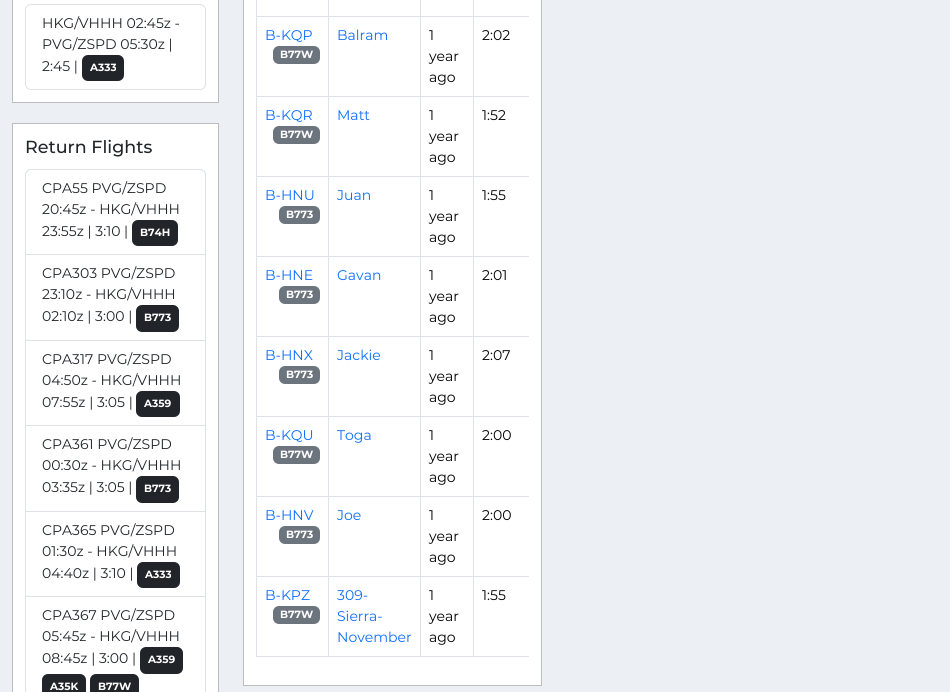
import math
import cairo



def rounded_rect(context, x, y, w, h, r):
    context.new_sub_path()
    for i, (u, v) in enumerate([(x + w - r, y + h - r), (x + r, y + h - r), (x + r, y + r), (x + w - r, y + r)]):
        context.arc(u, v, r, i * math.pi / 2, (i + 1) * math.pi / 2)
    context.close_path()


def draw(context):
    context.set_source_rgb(236 / 255, 240 / 255, 245 / 255)
    context.paint()
    context.set_source_rgb(1, 1, 1)
    context.rectangle(12.5, -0.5, 206, 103)
    context.fill_preserve()
    context.set_source_rgb(189 / 255, 189 / 255, 189 / 255)
    context.set_line_width(1)
    context.stroke()
    rounded_rect(context, 25.5, 4.5, 180, 85, 5.5)
    context.set_source_rgb(222 / 255, 226 / 255, 230 / 255)
    context.stroke()
    context.set_source_rgb(33 / 255, 37 / 255, 41 / 255)
    rounded_rect(context, 82, 55, 42, 26, 6)
    context.fill()
    context.set_source_rgb(1, 1, 1)
    context.rectangle(12.5, 123.5, 206, 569)
    context.fill_preserve()
    context.set_source_rgb(189 / 255, 189 / 255, 189 / 255)
    context.stroke()
    context.new_path()
    context.move_to(31, 169.5)
    context.line_to(200, 169.5)
    context.curve_to(203, 169.5, 205.5, 172, 205.5, 175)
    context.line_to(205.5, 254.5)
    context.line_to(25.5, 254.5)
    context.line_to(25.5, 175)
    context.curve_to(25.5, 172, 28, 169.5, 31, 169.5)
    context.close_path()
    context.set_source_rgb(222 / 255, 226 / 255, 230 / 255)
    context.stroke()
    context.set_source_rgb(33 / 255, 37 / 255, 41 / 255)
    rounded_rect(context, 132, 220, 46, 26, 6)
    context.fill()
    context.set_source_rgb(222 / 255, 226 / 255, 230 / 255)
    context.rectangle(205, 255, 1, 437)
    context.fill()
    context.rectangle(25, 340, 181, 1)
    context.fill()
    context.rectangle(25, 255, 1, 86)
    context.fill()
    context.set_source_rgb(33 / 255, 37 / 255, 41 / 255)
    rounded_rect(context, 136, 305, 43, 27, 6)
    context.fill()
    context.set_source_rgb(222 / 255, 226 / 255, 230 / 255)
    context.rectangle(25, 425, 181, 1)
    context.fill()
    context.rectangle(25, 341, 1, 85)
    context.fill()
    context.set_source_rgb(33 / 255, 37 / 255, 41 / 255)
    rounded_rect(context, 136, 391, 44, 26, 6)
    context.fill()
    context.set_source_rgb(222 / 255, 226 / 255, 230 / 255)
    context.rectangle(25, 511, 181, 1)
    context.fill()
    context.rectangle(25, 426, 1, 86)
    context.fill()
    context.set_source_rgb(33 / 255, 37 / 255, 41 / 255)
    rounded_rect(context, 136, 476, 43, 27, 6)
    context.fill()
    context.set_source_rgb(222 / 255, 226 / 255, 230 / 255)
    context.rectangle(25, 596, 181, 1)
    context.fill()
    context.rectangle(25, 512, 1, 180)
    context.fill()
    context.set_source_rgb(33 / 255, 37 / 255, 41 / 255)
    rounded_rect(context, 137, 562, 43, 26, 6)
    context.fill()
    rounded_rect(context, 140, 647, 43, 27, 6)
    context.fill()
    rounded_rect(context, 42, 674, 44, 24, 6)
    context.fill()
    rounded_rect(context, 90, 674, 49, 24, 6)
    context.fill()
    context.set_source_rgb(1, 1, 1)
    context.rectangle(243.5, -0.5, 298, 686)
    context.fill_preserve()
    context.set_source_rgb(189 / 255, 189 / 255, 189 / 255)
    context.stroke()
    context.set_source_rgb(222 / 255, 226 / 255, 230 / 255)
    context.rectangle(256, 16, 273, 1)
    context.fill()
    context.set_source_rgb(108 / 255, 117 / 255, 125 / 255)
    rounded_rect(context, 273, 46, 47, 18, 6)
    context.fill()
    context.set_source_rgb(222 / 255, 226 / 255, 230 / 255)
    context.rectangle(256, 96, 273, 1)
    context.fill()
    context.set_source_rgb(108 / 255, 117 / 255, 125 / 255)
    rounded_rect(context, 273, 126, 47, 18, 6)
    context.fill()
    context.set_source_rgb(222 / 255, 226 / 255, 230 / 255)
    context.rectangle(256, 176, 273, 1)
    context.fill()
    context.set_source_rgb(108 / 255, 117 / 255, 125 / 255)
    rounded_rect(context, 279, 206, 41, 18, 6)
    context.fill()
    context.set_source_rgb(222 / 255, 226 / 255, 230 / 255)
    context.rectangle(256, 256, 273, 1)
    context.fill()
    context.set_source_rgb(108 / 255, 117 / 255, 125 / 255)
    rounded_rect(context, 279, 286, 41, 18, 6)
    context.fill()
    context.set_source_rgb(222 / 255, 226 / 255, 230 / 255)
    context.rectangle(256, 336, 273, 1)
    context.fill()
    context.set_source_rgb(108 / 255, 117 / 255, 125 / 255)
    rounded_rect(context, 279, 366, 41, 18, 6)
    context.fill()
    context.set_source_rgb(222 / 255, 226 / 255, 230 / 255)
    context.rectangle(256, 416, 273, 1)
    context.fill()
    context.set_source_rgb(108 / 255, 117 / 255, 125 / 255)
    rounded_rect(context, 273, 446, 47, 18, 6)
    context.fill()
    context.set_source_rgb(222 / 255, 226 / 255, 230 / 255)
    context.rectangle(256, 496, 273, 1)
    context.fill()
    context.set_source_rgb(108 / 255, 117 / 255, 125 / 255)
    rounded_rect(context, 279, 526, 41, 18, 6)
    context.fill()
    context.set_source_rgb(222 / 255, 226 / 255, 230 / 255)
    context.rectangle(256, 576, 273, 1)
    context.fill()
    context.rectangle(256, 656, 273, 1)
    context.fill()
    context.rectangle(256, 0, 1, 657)
    context.fill()
    context.set_source_rgb(108 / 255, 117 / 255, 125 / 255)
    rounded_rect(context, 273, 606, 47, 18, 6)
    context.fill()
    context.set_source_rgb(222 / 255, 226 / 255, 230 / 255)
    context.rectangle(328, 0, 1, 657)
    context.fill()
    context.rectangle(420, 0, 1, 657)
    context.fill()
    context.rectangle(473, 0, 1, 657)
    context.fill()
    context.select_font_face("Montserrat")
    context.set_font_size(14)
    context.set_source_rgb(33 / 255, 37 / 255, 41 / 255)
    context.move_to(42, 28)
    context.show_text("HKG/VHHH 02:45z -")
    context.move_to(42, 49)
    context.show_text("PVG/ZSPD 05:30z |")
    context.move_to(42, 71)
    context.show_text("2:45 |")
    context.select_font_face("Montserrat", cairo.FontSlant.NORMAL, cairo.FontWeight.BOLD)
    context.set_font_size(10.5)
    context.set_source_rgb(1, 1, 1)
    context.move_to(90, 71)
    context.show_text("A333")
    context.select_font_face("Montserrat Medium")
    context.set_font_size(17.5)
    context.set_source_rgb(33 / 255, 37 / 255, 41 / 255)
    context.move_to(25, 153)
    context.show_text("Return Flights")
    context.select_font_face("Montserrat")
    context.set_font_size(14)
    context.move_to(42, 193)
    context.show_text("CPA55 PVG/ZSPD")
    context.move_to(42, 214)
    context.show_text("20:45z - HKG/VHHH")
    context.move_to(42, 236)
    context.show_text("23:55z | 3:10 |")
    context.select_font_face("Montserrat", cairo.FontSlant.NORMAL, cairo.FontWeight.BOLD)
    context.set_font_size(10.5)
    context.set_source_rgb(1, 1, 1)
    context.move_to(140, 236)
    context.show_text("B74H")
    context.select_font_face("Montserrat")
    context.set_font_size(14)
    context.set_source_rgb(33 / 255, 37 / 255, 41 / 255)
    context.move_to(42, 278)
    context.show_text("CPA303 PVG/ZSPD")
    context.move_to(42, 299)
    context.show_text("23:10z - HKG/VHHH")
    context.move_to(42, 321)
    context.show_text("02:10z | 3:00 |")
    context.select_font_face("Montserrat", cairo.FontSlant.NORMAL, cairo.FontWeight.BOLD)
    context.set_font_size(10.5)
    context.set_source_rgb(1, 1, 1)
    context.move_to(144, 321)
    context.show_text("B773")
    context.select_font_face("Montserrat")
    context.set_font_size(14)
    context.set_source_rgb(33 / 255, 37 / 255, 41 / 255)
    context.move_to(42, 364)
    context.show_text("CPA317 PVG/ZSPD")
    context.move_to(42, 385)
    context.show_text("04:50z - HKG/VHHH")
    context.move_to(42, 407)
    context.show_text("07:55z | 3:05 |")
    context.select_font_face("Montserrat", cairo.FontSlant.NORMAL, cairo.FontWeight.BOLD)
    context.set_font_size(10.5)
    context.set_source_rgb(1, 1, 1)
    context.move_to(144, 407)
    context.show_text("A359")
    context.select_font_face("Montserrat")
    context.set_font_size(14)
    context.set_source_rgb(33 / 255, 37 / 255, 41 / 255)
    context.move_to(42, 449)
    context.show_text("CPA361 PVG/ZSPD")
    context.move_to(42, 470)
    context.show_text("00:30z - HKG/VHHH")
    context.move_to(42, 492)
    context.show_text("03:35z | 3:05 |")
    context.select_font_face("Montserrat", cairo.FontSlant.NORMAL, cairo.FontWeight.BOLD)
    context.set_font_size(10.5)
    context.set_source_rgb(1, 1, 1)
    context.move_to(144, 492)
    context.show_text("B773")
    context.select_font_face("Montserrat")
    context.set_font_size(14)
    context.set_source_rgb(33 / 255, 37 / 255, 41 / 255)
    context.move_to(42, 535)
    context.show_text("CPA365 PVG/ZSPD")
    context.move_to(42, 556)
    context.show_text("01:30z - HKG/VHHH")
    context.move_to(42, 578)
    context.show_text("04:40z | 3:10 |")
    context.select_font_face("Montserrat", cairo.FontSlant.NORMAL, cairo.FontWeight.BOLD)
    context.set_font_size(10.5)
    context.set_source_rgb(1, 1, 1)
    context.move_to(145, 578)
    context.show_text("A333")
    context.select_font_face("Montserrat")
    context.set_font_size(14)
    context.set_source_rgb(33 / 255, 37 / 255, 41 / 255)
    context.move_to(42, 620)
    context.show_text("CPA367 PVG/ZSPD")
    context.move_to(42, 641)
    context.show_text("05:45z - HKG/VHHH")
    context.move_to(42, 663)
    context.show_text("08:45z | 3:00 |")
    context.select_font_face("Montserrat", cairo.FontSlant.NORMAL, cairo.FontWeight.BOLD)
    context.set_font_size(10.5)
    context.set_source_rgb(1, 1, 1)
    context.move_to(148, 663)
    context.show_text("A359")
    context.move_to(50, 690)
    context.show_text("A35K")
    context.move_to(98, 690)
    context.show_text("B77W")
    context.select_font_face("Montserrat")
    context.set_font_size(14)
    context.set_source_rgb(13 / 255, 110 / 255, 253 / 255)
    context.move_to(265, 40)
    context.show_text("B-KQP")
    context.select_font_face("Montserrat", cairo.FontSlant.NORMAL, cairo.FontWeight.BOLD)
    context.set_font_size(10.5)
    context.set_source_rgb(1, 1, 1)
    context.move_to(280, 58)
    context.show_text("B77W")
    context.select_font_face("Montserrat")
    context.set_font_size(14)
    context.set_source_rgb(13 / 255, 110 / 255, 253 / 255)
    context.move_to(337, 40)
    context.show_text("Balram")
    context.set_source_rgb(0, 0, 0)
    context.move_to(429, 40)
    context.show_text("1")
    context.move_to(429, 61)
    context.show_text("year")
    context.move_to(429, 82)
    context.show_text("ago")
    context.move_to(482, 40)
    context.show_text("2:02")
    context.set_source_rgb(13 / 255, 110 / 255, 253 / 255)
    context.move_to(265, 120)
    context.show_text("B-KQR")
    context.select_font_face("Montserrat", cairo.FontSlant.NORMAL, cairo.FontWeight.BOLD)
    context.set_font_size(10.5)
    context.set_source_rgb(1, 1, 1)
    context.move_to(280, 138)
    context.show_text("B77W")
    context.select_font_face("Montserrat")
    context.set_font_size(14)
    context.set_source_rgb(13 / 255, 110 / 255, 253 / 255)
    context.move_to(337, 120)
    context.show_text("Matt")
    context.set_source_rgb(0, 0, 0)
    context.move_to(429, 120)
    context.show_text("1")
    context.move_to(429, 141)
    context.show_text("year")
    context.move_to(429, 162)
    context.show_text("ago")
    context.move_to(482, 120)
    context.show_text("1:52")
    context.set_source_rgb(13 / 255, 110 / 255, 253 / 255)
    context.move_to(265, 200)
    context.show_text("B-HNU")
    context.select_font_face("Montserrat", cairo.FontSlant.NORMAL, cairo.FontWeight.BOLD)
    context.set_font_size(10.5)
    context.set_source_rgb(1, 1, 1)
    context.move_to(286, 218)
    context.show_text("B773")
    context.select_font_face("Montserrat")
    context.set_font_size(14)
    context.set_source_rgb(13 / 255, 110 / 255, 253 / 255)
    context.move_to(337, 200)
    context.show_text("Juan")
    context.set_source_rgb(0, 0, 0)
    context.move_to(429, 200)
    context.show_text("1")
    context.move_to(429, 221)
    context.show_text("year")
    context.move_to(429, 242)
    context.show_text("ago")
    context.move_to(482, 200)
    context.show_text("1:55")
    context.set_source_rgb(13 / 255, 110 / 255, 253 / 255)
    context.move_to(265, 280)
    context.show_text("B-HNE")
    context.select_font_face("Montserrat", cairo.FontSlant.NORMAL, cairo.FontWeight.BOLD)
    context.set_font_size(10.5)
    context.set_source_rgb(1, 1, 1)
    context.move_to(286, 298)
    context.show_text("B773")
    context.select_font_face("Montserrat")
    context.set_font_size(14)
    context.set_source_rgb(13 / 255, 110 / 255, 253 / 255)
    context.move_to(337, 280)
    context.show_text("Gavan")
    context.set_source_rgb(0, 0, 0)
    context.move_to(429, 280)
    context.show_text("1")
    context.move_to(429, 301)
    context.show_text("year")
    context.move_to(429, 322)
    context.show_text("ago")
    context.move_to(482, 280)
    context.show_text("2:01")
    context.set_source_rgb(13 / 255, 110 / 255, 253 / 255)
    context.move_to(265, 360)
    context.show_text("B-HNX")
    context.select_font_face("Montserrat", cairo.FontSlant.NORMAL, cairo.FontWeight.BOLD)
    context.set_font_size(10.5)
    context.set_source_rgb(1, 1, 1)
    context.move_to(286, 378)
    context.show_text("B773")
    context.select_font_face("Montserrat")
    context.set_font_size(14)
    context.set_source_rgb(13 / 255, 110 / 255, 253 / 255)
    context.move_to(337, 360)
    context.show_text("Jackie")
    context.set_source_rgb(0, 0, 0)
    context.move_to(429, 360)
    context.show_text("1")
    context.move_to(429, 381)
    context.show_text("year")
    context.move_to(429, 402)
    context.show_text("ago")
    context.move_to(482, 360)
    context.show_text("2:07")
    context.set_source_rgb(13 / 255, 110 / 255, 253 / 255)
    context.move_to(265, 440)
    context.show_text("B-KQU")
    context.select_font_face("Montserrat", cairo.FontSlant.NORMAL, cairo.FontWeight.BOLD)
    context.set_font_size(10.5)
    context.set_source_rgb(1, 1, 1)
    context.move_to(280, 458)
    context.show_text("B77W")
    context.select_font_face("Montserrat")
    context.set_font_size(14)
    context.set_source_rgb(13 / 255, 110 / 255, 253 / 255)
    context.move_to(337, 440)
    context.show_text("Toga")
    context.set_source_rgb(0, 0, 0)
    context.move_to(429, 440)
    context.show_text("1")
    context.move_to(429, 461)
    context.show_text("year")
    context.move_to(429, 482)
    context.show_text("ago")
    context.move_to(482, 440)
    context.show_text("2:00")
    context.set_source_rgb(13 / 255, 110 / 255, 253 / 255)
    context.move_to(265, 520)
    context.show_text("B-HNV")
    context.select_font_face("Montserrat", cairo.FontSlant.NORMAL, cairo.FontWeight.BOLD)
    context.set_font_size(10.5)
    context.set_source_rgb(1, 1, 1)
    context.move_to(286, 538)
    context.show_text("B773")
    context.select_font_face("Montserrat")
    context.set_font_size(14)
    context.set_source_rgb(13 / 255, 110 / 255, 253 / 255)
    context.move_to(337, 520)
    context.show_text("Joe")
    context.set_source_rgb(0, 0, 0)
    context.move_to(429, 520)
    context.show_text("1")
    context.move_to(429, 541)
    context.show_text("year")
    context.move_to(429, 562)
    context.show_text("ago")
    context.move_to(482, 520)
    context.show_text("2:00")
    context.set_source_rgb(13 / 255, 110 / 255, 253 / 255)
    context.move_to(265, 600)
    context.show_text("B-KPZ")
    context.select_font_face("Montserrat", cairo.FontSlant.NORMAL, cairo.FontWeight.BOLD)
    context.set_font_size(10.5)
    context.set_source_rgb(1, 1, 1)
    context.move_to(280, 618)
    context.show_text("B77W")
    context.select_font_face("Montserrat")
    context.set_font_size(14)
    context.set_source_rgb(13 / 255, 110 / 255, 253 / 255)
    context.move_to(337, 600)
    context.show_text("309-")
    context.move_to(337, 621)
    context.show_text("Sierra-")
    context.move_to(337, 642)
    context.show_text("November")
    context.set_source_rgb(0, 0, 0)
    context.move_to(429, 600)
    context.show_text("1")
    context.move_to(429, 621)
    context.show_text("year")
    context.move_to(429, 642)
    context.show_text("ago")
    context.move_to(482, 600)
    context.show_text("1:55")


surface = cairo.ImageSurface(cairo.Format.RGB24, 950, 692)
context = cairo.Context(surface)
options = cairo.FontOptions()
options.set_hint_metrics(cairo.HintMetrics.OFF)
options.set_hint_style(cairo.HintStyle.NONE)
context.set_font_options(options)
context.set_miter_limit(4)
draw(context)
surface.write_to_png("out.png")
